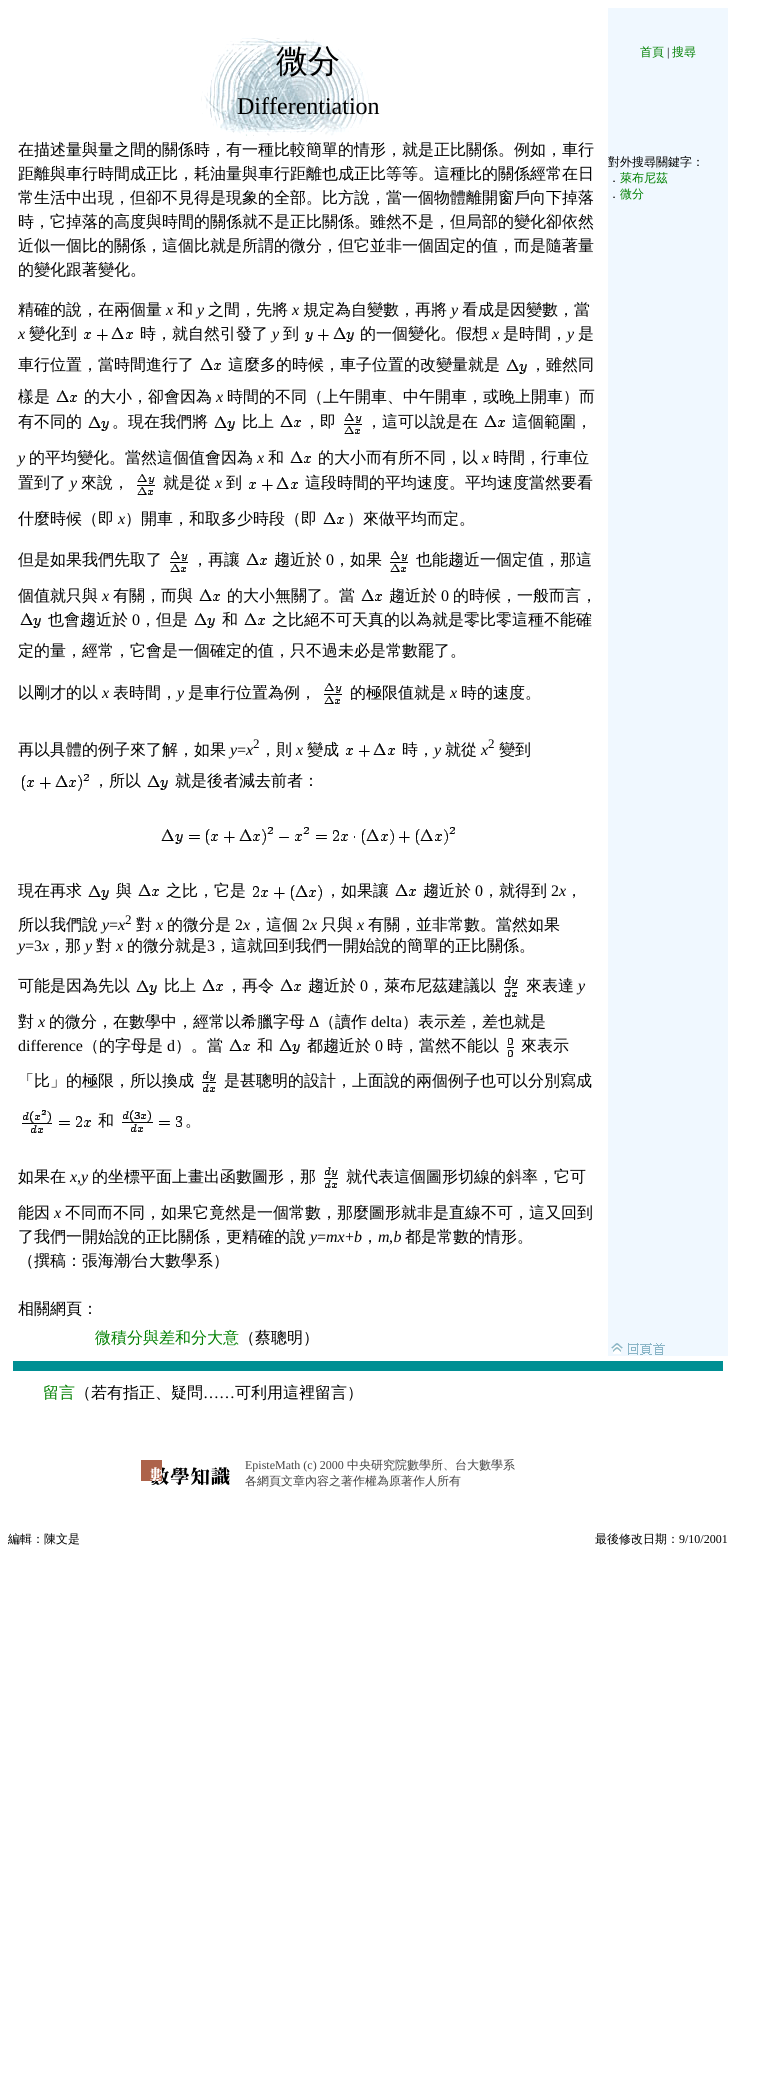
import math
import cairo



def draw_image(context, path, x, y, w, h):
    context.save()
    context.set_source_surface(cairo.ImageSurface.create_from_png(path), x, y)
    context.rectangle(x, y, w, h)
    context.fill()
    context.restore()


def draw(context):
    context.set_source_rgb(1, 1, 1)
    context.paint()
    draw_image(context, "images/1.png", 201, 38, 169, 98)
    context.set_source_rgb(240 / 255, 248 / 255, 1)
    context.rectangle(608, 8, 120, 1348)
    context.fill()
    draw_image(context, "images/2.png", 84, 327, 49, 14)
    draw_image(context, "images/3.png", 305, 327, 49, 15)
    draw_image(context, "images/4.png", 200, 358, 21, 12)
    draw_image(context, "images/5.png", 506, 359, 21, 15)
    draw_image(context, "images/4.png", 56, 390, 21, 12)
    draw_image(context, "images/5.png", 88, 416, 21, 15)
    draw_image(context, "images/5.png", 214, 416, 21, 15)
    draw_image(context, "images/4.png", 280, 415, 21, 12)
    draw_image(context, "images/6.png", 344, 413, 18, 21)
    draw_image(context, "images/4.png", 484, 415, 21, 12)
    draw_image(context, "images/4.png", 290, 451, 21, 12)
    draw_image(context, "images/6.png", 137, 474, 18, 21)
    draw_image(context, "images/2.png", 249, 477, 49, 14)
    draw_image(context, "images/4.png", 323, 512, 21, 12)
    draw_image(context, "images/6.png", 170, 551, 18, 21)
    draw_image(context, "images/4.png", 246, 553, 21, 12)
    draw_image(context, "images/6.png", 390, 551, 18, 21)
    draw_image(context, "images/4.png", 199, 589, 21, 12)
    draw_image(context, "images/4.png", 361, 589, 21, 12)
    draw_image(context, "images/5.png", 20, 613, 21, 15)
    draw_image(context, "images/5.png", 194, 613, 21, 15)
    draw_image(context, "images/4.png", 244, 613, 21, 12)
    draw_image(context, "images/6.png", 324, 683, 18, 21)
    draw_image(context, "images/2.png", 346, 743, 49, 14)
    draw_image(context, "images/7.png", 22, 774, 67, 17)
    draw_image(context, "images/5.png", 147, 775, 21, 15)
    draw_image(context, "images/8.png", 161, 827, 294, 18)
    draw_image(context, "images/5.png", 88, 885, 21, 15)
    draw_image(context, "images/4.png", 138, 884, 21, 12)
    draw_image(context, "images/9.png", 253, 885, 69, 16)
    draw_image(context, "images/4.png", 395, 884, 21, 12)
    draw_image(context, "images/5.png", 136, 980, 21, 15)
    draw_image(context, "images/4.png", 202, 979, 21, 12)
    draw_image(context, "images/4.png", 280, 979, 21, 12)
    draw_image(context, "images/10.png", 504, 976, 14, 21)
    draw_image(context, "images/4.png", 229, 1039, 21, 12)
    draw_image(context, "images/5.png", 279, 1039, 21, 15)
    draw_image(context, "images/11.png", 507, 1038, 7, 19)
    draw_image(context, "images/10.png", 202, 1071, 14, 21)
    draw_image(context, "images/12.png", 22, 1110, 69, 23)
    draw_image(context, "images/13.png", 122, 1110, 60, 22)
    draw_image(context, "images/10.png", 324, 1167, 14, 21)
    draw_image(context, "images/14.png", 611, 1343, 54, 12)
    context.set_source_rgb(0, 143 / 255, 147 / 255)
    context.rectangle(13, 1361, 710, 10)
    context.fill()
    draw_image(context, "images/15.png", 141, 1460, 89, 25)
    context.select_font_face("WenQuanYi Zen Hei Medium")
    context.set_font_size(32)
    context.set_source_rgb(0, 0, 0)
    context.move_to(276, 72)
    context.show_text("微分")
    context.select_font_face("Liberation Serif")
    context.set_font_size(24)
    context.move_to(237, 114)
    context.show_text("Differentiation")
    context.select_font_face("WenQuanYi Zen Hei Medium")
    context.set_font_size(12)
    context.set_source_rgb(0, 128 / 255, 0)
    context.move_to(640, 56)
    context.show_text("首頁")
    context.select_font_face("Liberation Serif")
    context.set_source_rgb(0, 0, 0)
    context.move_to(667, 56)
    context.show_text("|")
    context.select_font_face("WenQuanYi Zen Hei Medium")
    context.set_source_rgb(0, 128 / 255, 0)
    context.move_to(672, 56)
    context.show_text("搜尋")
    context.set_font_size(16)
    context.set_source_rgb(0, 0, 0)
    context.move_to(18, 155)
    context.show_text("在描述量與量之間的關係時，有一種比較簡單的情形，就是正比關係。例如，車行")
    context.move_to(18, 179)
    context.show_text("距離與車行時間成正比，耗油量與車行距離也成正比等等。這種比的關係經常在日")
    context.move_to(18, 203)
    context.show_text("常生活中出現，但卻不見得是現象的全部。比方說，當一個物體離開窗戶向下掉落")
    context.move_to(18, 227)
    context.show_text("時，它掉落的高度與時間的關係就不是正比關係。雖然不是，但局部的變化卻依然")
    context.move_to(18, 251)
    context.show_text("近似一個比的關係，這個比就是所謂的微分，但它並非一個固定的值，而是隨著量")
    context.move_to(18, 275)
    context.show_text("的變化跟著變化。")
    context.move_to(18, 315)
    context.show_text("精確的說，在兩個量")
    context.select_font_face("Liberation Serif", cairo.FontSlant.ITALIC)
    context.move_to(166, 315)
    context.show_text("x")
    context.select_font_face("WenQuanYi Zen Hei Medium")
    context.move_to(177, 315)
    context.show_text("和")
    context.select_font_face("Liberation Serif", cairo.FontSlant.ITALIC)
    context.move_to(197, 315)
    context.show_text("y")
    context.select_font_face("WenQuanYi Zen Hei Medium")
    context.move_to(208, 315)
    context.show_text("之間，先將")
    context.select_font_face("Liberation Serif", cairo.FontSlant.ITALIC)
    context.move_to(292, 315)
    context.show_text("x")
    context.select_font_face("WenQuanYi Zen Hei Medium")
    context.move_to(303, 315)
    context.show_text("規定為自變數，再將")
    context.select_font_face("Liberation Serif", cairo.FontSlant.ITALIC)
    context.move_to(451, 315)
    context.show_text("y")
    context.select_font_face("WenQuanYi Zen Hei Medium")
    context.move_to(462, 315)
    context.show_text("看成是因變數，當")
    context.select_font_face("Liberation Serif", cairo.FontSlant.ITALIC)
    context.move_to(18, 339)
    context.show_text("x")
    context.select_font_face("WenQuanYi Zen Hei Medium")
    context.move_to(29, 339)
    context.show_text("變化到")
    context.move_to(140, 339)
    context.show_text("時，就自然引發了")
    context.select_font_face("Liberation Serif", cairo.FontSlant.ITALIC)
    context.move_to(272, 339)
    context.show_text("y")
    context.select_font_face("WenQuanYi Zen Hei Medium")
    context.move_to(283, 339)
    context.show_text("到")
    context.move_to(360, 339)
    context.show_text("的一個變化。假想")
    context.select_font_face("Liberation Serif", cairo.FontSlant.ITALIC)
    context.move_to(492, 339)
    context.show_text("x")
    context.select_font_face("WenQuanYi Zen Hei Medium")
    context.move_to(503, 339)
    context.show_text("是時間，")
    context.select_font_face("Liberation Serif", cairo.FontSlant.ITALIC)
    context.move_to(567, 339)
    context.show_text("y")
    context.select_font_face("WenQuanYi Zen Hei Medium")
    context.move_to(578, 339)
    context.show_text("是")
    context.move_to(18, 370)
    context.show_text("車行位置，當時間進行了")
    context.move_to(228, 370)
    context.show_text("這麼多的時候，車子位置的改變量就是")
    context.move_to(530, 370)
    context.show_text("，雖然同")
    context.move_to(18, 402)
    context.show_text("樣是")
    context.move_to(84, 402)
    context.show_text("的大小，卻會因為")
    context.select_font_face("Liberation Serif", cairo.FontSlant.ITALIC)
    context.move_to(216, 402)
    context.show_text("x")
    context.select_font_face("WenQuanYi Zen Hei Medium")
    context.move_to(227, 402)
    context.show_text("時間的不同（上午開車、中午開車，或晚上開車）而")
    context.move_to(18, 427)
    context.show_text("有不同的")
    context.move_to(112, 427)
    context.show_text("。現在我們將")
    context.move_to(242, 427)
    context.show_text("比上")
    context.move_to(304, 427)
    context.show_text("，即")
    context.move_to(366, 427)
    context.show_text("，這可以說是在")
    context.move_to(512, 427)
    context.show_text("這個範圍，")
    context.select_font_face("Liberation Serif", cairo.FontSlant.ITALIC)
    context.move_to(18, 463)
    context.show_text("y")
    context.select_font_face("WenQuanYi Zen Hei Medium")
    context.move_to(29, 463)
    context.show_text("的平均變化。當然這個值會因為")
    context.select_font_face("Liberation Serif", cairo.FontSlant.ITALIC)
    context.move_to(257, 463)
    context.show_text("x")
    context.select_font_face("WenQuanYi Zen Hei Medium")
    context.move_to(268, 463)
    context.show_text("和")
    context.move_to(318, 463)
    context.show_text("的大小而有所不同，以")
    context.select_font_face("Liberation Serif", cairo.FontSlant.ITALIC)
    context.move_to(482, 463)
    context.show_text("x")
    context.select_font_face("WenQuanYi Zen Hei Medium")
    context.move_to(493, 463)
    context.show_text("時間，行車位")
    context.move_to(18, 488)
    context.show_text("置到了")
    context.select_font_face("Liberation Serif", cairo.FontSlant.ITALIC)
    context.move_to(70, 488)
    context.show_text("y")
    context.select_font_face("WenQuanYi Zen Hei Medium")
    context.move_to(81, 488)
    context.show_text("來說，")
    context.move_to(163, 488)
    context.show_text("就是從")
    context.select_font_face("Liberation Serif", cairo.FontSlant.ITALIC)
    context.move_to(215, 488)
    context.show_text("x")
    context.select_font_face("WenQuanYi Zen Hei Medium")
    context.move_to(226, 488)
    context.show_text("到")
    context.move_to(305, 488)
    context.show_text("這段時間的平均速度。平均速度當然要看")
    context.move_to(18, 524)
    context.show_text("什麼時候（即")
    context.select_font_face("Liberation Serif", cairo.FontSlant.ITALIC)
    context.move_to(118, 524)
    context.show_text("x")
    context.select_font_face("WenQuanYi Zen Hei Medium")
    context.move_to(125, 524)
    context.show_text("）開車，和取多少時段（即")
    context.move_to(347, 524)
    context.show_text("）來做平均而定。")
    context.move_to(18, 565)
    context.show_text("但是如果我們先取了")
    context.move_to(192, 565)
    context.show_text("，再讓")
    context.move_to(274, 565)
    context.show_text("趨近於")
    context.select_font_face("Liberation Serif")
    context.move_to(326, 565)
    context.show_text("0")
    context.select_font_face("WenQuanYi Zen Hei Medium")
    context.move_to(334, 565)
    context.show_text("，如果")
    context.move_to(416, 565)
    context.show_text("也能趨近一個定值，那這")
    context.move_to(18, 601)
    context.show_text("個值就只與")
    context.select_font_face("Liberation Serif", cairo.FontSlant.ITALIC)
    context.move_to(102, 601)
    context.show_text("x")
    context.select_font_face("WenQuanYi Zen Hei Medium")
    context.move_to(113, 601)
    context.show_text("有關，而與")
    context.move_to(227, 601)
    context.show_text("的大小無關了。當")
    context.move_to(389, 601)
    context.show_text("趨近於")
    context.select_font_face("Liberation Serif")
    context.move_to(441, 601)
    context.show_text("0")
    context.select_font_face("WenQuanYi Zen Hei Medium")
    context.move_to(453, 601)
    context.show_text("的時候，一般而言，")
    context.move_to(48, 625)
    context.show_text("也會趨近於")
    context.select_font_face("Liberation Serif")
    context.move_to(132, 625)
    context.show_text("0")
    context.select_font_face("WenQuanYi Zen Hei Medium")
    context.move_to(140, 625)
    context.show_text("，但是")
    context.move_to(222, 625)
    context.show_text("和")
    context.move_to(272, 625)
    context.show_text("之比絕不可天真的以為就是零比零這種不能確")
    context.move_to(18, 656)
    context.show_text("定的量，經常，它會是一個確定的值，只不過未必是常數罷了。")
    context.move_to(18, 698)
    context.show_text("以剛才的以")
    context.select_font_face("Liberation Serif", cairo.FontSlant.ITALIC)
    context.move_to(102, 698)
    context.show_text("x")
    context.select_font_face("WenQuanYi Zen Hei Medium")
    context.move_to(113, 698)
    context.show_text("表時間，")
    context.select_font_face("Liberation Serif", cairo.FontSlant.ITALIC)
    context.move_to(177, 698)
    context.show_text("y")
    context.select_font_face("WenQuanYi Zen Hei Medium")
    context.move_to(188, 698)
    context.show_text("是車行位置為例，")
    context.move_to(350, 698)
    context.show_text("的極限值就是")
    context.select_font_face("Liberation Serif", cairo.FontSlant.ITALIC)
    context.move_to(450, 698)
    context.show_text("x")
    context.select_font_face("WenQuanYi Zen Hei Medium")
    context.move_to(461, 698)
    context.show_text("時的速度。")
    context.move_to(18, 755)
    context.show_text("再以具體的例子來了解，如果")
    context.select_font_face("Liberation Serif", cairo.FontSlant.ITALIC)
    context.move_to(230, 755)
    context.show_text("y")
    context.select_font_face("Liberation Serif")
    context.move_to(237, 755)
    context.show_text("=")
    context.select_font_face("Liberation Serif", cairo.FontSlant.ITALIC)
    context.move_to(246, 755)
    context.show_text("x")
    context.select_font_face("Liberation Serif")
    context.set_font_size(13)
    context.move_to(253, 748)
    context.show_text("2")
    context.select_font_face("WenQuanYi Zen Hei Medium")
    context.set_font_size(16)
    context.move_to(260, 755)
    context.show_text("，則")
    context.select_font_face("Liberation Serif", cairo.FontSlant.ITALIC)
    context.move_to(296, 755)
    context.show_text("x")
    context.select_font_face("WenQuanYi Zen Hei Medium")
    context.move_to(307, 755)
    context.show_text("變成")
    context.move_to(402, 755)
    context.show_text("時，")
    context.select_font_face("Liberation Serif", cairo.FontSlant.ITALIC)
    context.move_to(434, 755)
    context.show_text("y")
    context.select_font_face("WenQuanYi Zen Hei Medium")
    context.move_to(445, 755)
    context.show_text("就從")
    context.select_font_face("Liberation Serif", cairo.FontSlant.ITALIC)
    context.move_to(481, 755)
    context.show_text("x")
    context.select_font_face("Liberation Serif")
    context.set_font_size(13)
    context.move_to(488, 748)
    context.show_text("2")
    context.select_font_face("WenQuanYi Zen Hei Medium")
    context.set_font_size(16)
    context.move_to(499, 755)
    context.show_text("變到")
    context.move_to(93, 786)
    context.show_text("，所以")
    context.move_to(175, 786)
    context.show_text("就是後者減去前者：")
    context.move_to(18, 896)
    context.show_text("現在再求")
    context.move_to(116, 896)
    context.show_text("與")
    context.move_to(166, 896)
    context.show_text("之比，它是")
    context.move_to(325, 896)
    context.show_text("，如果讓")
    context.move_to(423, 896)
    context.show_text("趨近於")
    context.select_font_face("Liberation Serif")
    context.move_to(475, 896)
    context.show_text("0")
    context.select_font_face("WenQuanYi Zen Hei Medium")
    context.move_to(483, 896)
    context.show_text("，就得到")
    context.select_font_face("Liberation Serif")
    context.move_to(551, 896)
    context.show_text("2")
    context.select_font_face("Liberation Serif", cairo.FontSlant.ITALIC)
    context.move_to(559, 896)
    context.show_text("x")
    context.select_font_face("WenQuanYi Zen Hei Medium")
    context.move_to(566, 896)
    context.show_text("，")
    context.move_to(18, 930)
    context.show_text("所以我們說")
    context.select_font_face("Liberation Serif", cairo.FontSlant.ITALIC)
    context.move_to(102, 930)
    context.show_text("y")
    context.select_font_face("Liberation Serif")
    context.move_to(109, 930)
    context.show_text("=")
    context.select_font_face("Liberation Serif", cairo.FontSlant.ITALIC)
    context.move_to(118, 930)
    context.show_text("x")
    context.select_font_face("Liberation Serif")
    context.set_font_size(13)
    context.move_to(125, 924)
    context.show_text("2")
    context.select_font_face("WenQuanYi Zen Hei Medium")
    context.set_font_size(16)
    context.move_to(136, 930)
    context.show_text("對")
    context.select_font_face("Liberation Serif", cairo.FontSlant.ITALIC)
    context.move_to(156, 930)
    context.show_text("x")
    context.select_font_face("WenQuanYi Zen Hei Medium")
    context.move_to(167, 930)
    context.show_text("的微分是")
    context.select_font_face("Liberation Serif")
    context.move_to(235, 930)
    context.show_text("2")
    context.select_font_face("Liberation Serif", cairo.FontSlant.ITALIC)
    context.move_to(243, 930)
    context.show_text("x")
    context.select_font_face("WenQuanYi Zen Hei Medium")
    context.move_to(250, 930)
    context.show_text("，這個")
    context.select_font_face("Liberation Serif")
    context.move_to(302, 930)
    context.show_text("2")
    context.select_font_face("Liberation Serif", cairo.FontSlant.ITALIC)
    context.move_to(310, 930)
    context.show_text("x")
    context.select_font_face("WenQuanYi Zen Hei Medium")
    context.move_to(321, 930)
    context.show_text("只與")
    context.select_font_face("Liberation Serif", cairo.FontSlant.ITALIC)
    context.move_to(357, 930)
    context.show_text("x")
    context.select_font_face("WenQuanYi Zen Hei Medium")
    context.move_to(368, 930)
    context.show_text("有關，並非常數。當然如果")
    context.select_font_face("Liberation Serif", cairo.FontSlant.ITALIC)
    context.move_to(18, 951)
    context.show_text("y")
    context.select_font_face("Liberation Serif")
    context.move_to(25, 951)
    context.show_text("=3")
    context.select_font_face("Liberation Serif", cairo.FontSlant.ITALIC)
    context.move_to(42, 951)
    context.show_text("x")
    context.select_font_face("WenQuanYi Zen Hei Medium")
    context.move_to(49, 951)
    context.show_text("，那")
    context.select_font_face("Liberation Serif", cairo.FontSlant.ITALIC)
    context.move_to(85, 951)
    context.show_text("y")
    context.select_font_face("WenQuanYi Zen Hei Medium")
    context.move_to(96, 951)
    context.show_text("對")
    context.select_font_face("Liberation Serif", cairo.FontSlant.ITALIC)
    context.move_to(116, 951)
    context.show_text("x")
    context.select_font_face("WenQuanYi Zen Hei Medium")
    context.move_to(127, 951)
    context.show_text("的微分就是")
    context.select_font_face("Liberation Serif")
    context.move_to(207, 951)
    context.show_text("3")
    context.select_font_face("WenQuanYi Zen Hei Medium")
    context.move_to(215, 951)
    context.show_text("，這就回到我們一開始說的簡單的正比關係。")
    context.move_to(18, 991)
    context.show_text("可能是因為先以")
    context.move_to(164, 991)
    context.show_text("比上")
    context.move_to(226, 991)
    context.show_text("，再令")
    context.move_to(308, 991)
    context.show_text("趨近於")
    context.select_font_face("Liberation Serif")
    context.move_to(360, 991)
    context.show_text("0")
    context.select_font_face("WenQuanYi Zen Hei Medium")
    context.move_to(368, 991)
    context.show_text("，萊布尼茲建議以")
    context.move_to(526, 991)
    context.show_text("來表達")
    context.select_font_face("Liberation Serif", cairo.FontSlant.ITALIC)
    context.move_to(578, 991)
    context.show_text("y")
    context.select_font_face("WenQuanYi Zen Hei Medium")
    context.move_to(18, 1027)
    context.show_text("對")
    context.select_font_face("Liberation Serif", cairo.FontSlant.ITALIC)
    context.move_to(38, 1027)
    context.show_text("x")
    context.select_font_face("WenQuanYi Zen Hei Medium")
    context.move_to(49, 1027)
    context.show_text("的微分，在數學中，經常以希臘字母")
    context.select_font_face("Liberation Serif")
    context.move_to(309, 1027)
    context.show_text("Δ")
    context.select_font_face("WenQuanYi Zen Hei Medium")
    context.move_to(319, 1027)
    context.show_text("（讀作")
    context.select_font_face("Liberation Serif")
    context.move_to(371, 1027)
    context.show_text("delta")
    context.select_font_face("WenQuanYi Zen Hei Medium")
    context.move_to(402, 1027)
    context.show_text("）表示差，差也就是")
    context.select_font_face("Liberation Serif")
    context.move_to(18, 1051)
    context.show_text("difference")
    context.select_font_face("WenQuanYi Zen Hei Medium")
    context.move_to(83, 1051)
    context.show_text("（的字母是")
    context.select_font_face("Liberation Serif")
    context.move_to(167, 1051)
    context.show_text("d")
    context.select_font_face("WenQuanYi Zen Hei Medium")
    context.move_to(175, 1051)
    context.show_text("）。當")
    context.move_to(257, 1051)
    context.show_text("和")
    context.move_to(307, 1051)
    context.show_text("都趨近於")
    context.select_font_face("Liberation Serif")
    context.move_to(375, 1051)
    context.show_text("0")
    context.select_font_face("WenQuanYi Zen Hei Medium")
    context.move_to(387, 1051)
    context.show_text("時，當然不能以")
    context.move_to(521, 1051)
    context.show_text("來表示")
    context.move_to(18, 1086)
    context.show_text("「比」的極限，所以換成")
    context.move_to(224, 1086)
    context.show_text("是甚聰明的設計，上面說的兩個例子也可以分別寫成")
    context.move_to(98, 1126)
    context.show_text("和")
    context.move_to(185, 1126)
    context.show_text("。")
    context.move_to(18, 1182)
    context.show_text("如果在")
    context.select_font_face("Liberation Serif", cairo.FontSlant.ITALIC)
    context.move_to(70, 1182)
    context.show_text("x")
    context.select_font_face("WenQuanYi Zen Hei Medium")
    context.move_to(92, 1182)
    context.show_text("的坐標平面上畫出函數圖形，那")
    context.move_to(346, 1182)
    context.show_text("就代表這個圖形切線的斜率，它可")
    context.select_font_face("Liberation Serif")
    context.move_to(77, 1182)
    context.show_text(",")
    context.select_font_face("Liberation Serif", cairo.FontSlant.ITALIC)
    context.move_to(81, 1182)
    context.show_text("y")
    context.select_font_face("WenQuanYi Zen Hei Medium")
    context.move_to(18, 1218)
    context.show_text("能因")
    context.select_font_face("Liberation Serif", cairo.FontSlant.ITALIC)
    context.move_to(54, 1218)
    context.show_text("x")
    context.select_font_face("WenQuanYi Zen Hei Medium")
    context.move_to(65, 1218)
    context.show_text("不同而不同，如果它竟然是一個常數，那麼圖形就非是直線不可，這又回到")
    context.move_to(18, 1242)
    context.show_text("了我們一開始說的正比關係，更精確的說")
    context.select_font_face("Liberation Serif", cairo.FontSlant.ITALIC)
    context.move_to(310, 1242)
    context.show_text("y")
    context.select_font_face("Liberation Serif")
    context.move_to(317, 1242)
    context.show_text("=")
    context.select_font_face("Liberation Serif", cairo.FontSlant.ITALIC)
    context.move_to(326, 1242)
    context.show_text("mx")
    context.select_font_face("Liberation Serif")
    context.move_to(345, 1242)
    context.show_text("+")
    context.select_font_face("Liberation Serif", cairo.FontSlant.ITALIC)
    context.move_to(354, 1242)
    context.show_text("b")
    context.move_to(378, 1242)
    context.show_text("m b")
    context.select_font_face("WenQuanYi Zen Hei Medium")
    context.move_to(405, 1242)
    context.show_text("都是常數的情形。")
    context.move_to(362, 1242)
    context.show_text("，")
    context.select_font_face("Liberation Serif")
    context.move_to(389, 1242)
    context.show_text(",")
    context.select_font_face("WenQuanYi Zen Hei Medium")
    context.set_font_size(12)
    context.move_to(608, 166)
    context.show_text("對外搜尋關鍵字：")
    context.move_to(608, 182)
    context.show_text("．")
    context.set_source_rgb(0, 128 / 255, 0)
    context.move_to(620, 182)
    context.show_text("萊布尼茲")
    context.set_source_rgb(0, 0, 0)
    context.move_to(608, 198)
    context.show_text("．")
    context.set_source_rgb(0, 128 / 255, 0)
    context.move_to(620, 198)
    context.show_text("微分")
    context.set_font_size(16)
    context.set_source_rgb(0, 0, 0)
    context.move_to(18, 1266)
    context.show_text("（撰稿：張海潮")
    context.select_font_face("Liberation Serif")
    context.move_to(130, 1266)
    context.show_text("∕")
    context.select_font_face("WenQuanYi Zen Hei Medium")
    context.move_to(133, 1266)
    context.show_text("台大數學系）")
    context.move_to(18, 1314)
    context.show_text("相關網頁：")
    context.set_source_rgb(0, 128 / 255, 0)
    context.move_to(95, 1343)
    context.show_text("微積分與差和分大意")
    context.set_source_rgb(0, 0, 0)
    context.move_to(239, 1343)
    context.show_text("（蔡聰明）")
    context.set_source_rgb(0, 128 / 255, 0)
    context.move_to(43, 1398)
    context.show_text("留言")
    context.set_source_rgb(0, 0, 0)
    context.move_to(75, 1398)
    context.show_text("（若有指正、疑問")
    context.select_font_face("Liberation Serif")
    context.move_to(203, 1398)
    context.show_text("……")
    context.select_font_face("WenQuanYi Zen Hei Medium")
    context.move_to(235, 1398)
    context.show_text("可利用這裡留言）")
    context.select_font_face("Liberation Serif")
    context.set_font_size(12)
    context.set_source_rgb(68 / 255, 68 / 255, 68 / 255)
    context.move_to(245, 1469)
    context.show_text("EpisteMath (c) 2000")
    context.select_font_face("WenQuanYi Zen Hei Medium")
    context.move_to(347, 1469)
    context.show_text("中央研究院數學所、台大數學系")
    context.move_to(245, 1485)
    context.show_text("各網頁文章內容之著作權為原著作人所有")
    context.set_source_rgb(0, 0, 0)
    context.move_to(8, 1543)
    context.show_text("編輯：陳文是")
    context.move_to(595, 1543)
    context.show_text("最後修改日期：")
    context.select_font_face("Liberation Serif")
    context.move_to(679, 1543)
    context.show_text("9/10/2001")


surface = cairo.ImageSurface(cairo.Format.RGB24, 761, 2086)
context = cairo.Context(surface)
options = cairo.FontOptions()
options.set_hint_metrics(cairo.HintMetrics.OFF)
options.set_hint_style(cairo.HintStyle.NONE)
context.set_font_options(options)
context.set_miter_limit(4)
draw(context)
surface.write_to_png("out.png")
